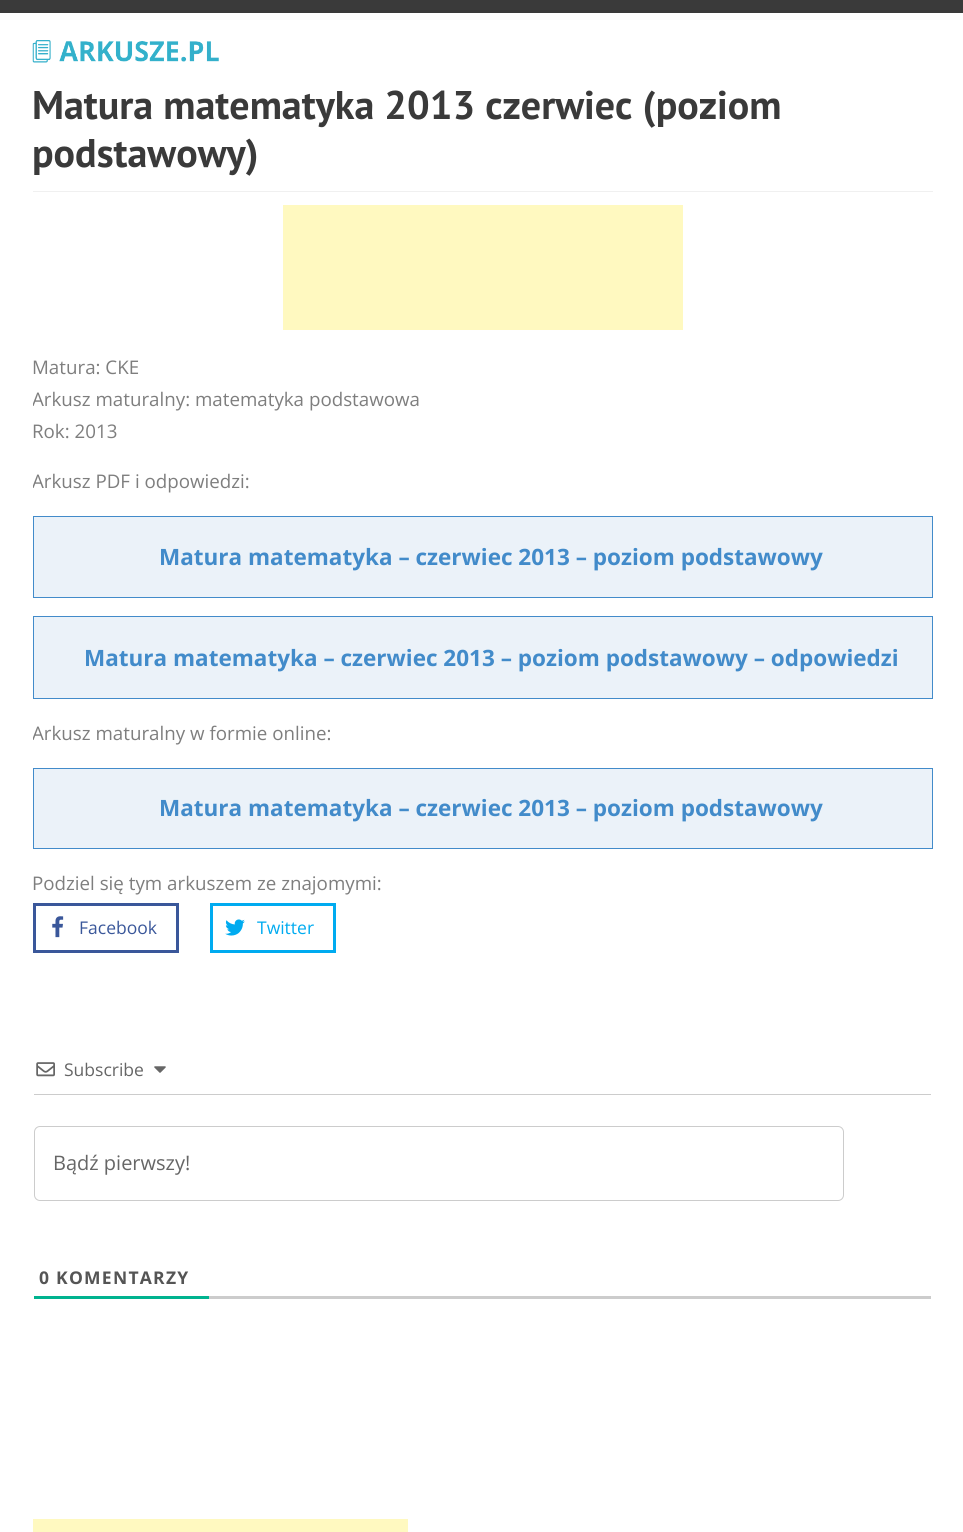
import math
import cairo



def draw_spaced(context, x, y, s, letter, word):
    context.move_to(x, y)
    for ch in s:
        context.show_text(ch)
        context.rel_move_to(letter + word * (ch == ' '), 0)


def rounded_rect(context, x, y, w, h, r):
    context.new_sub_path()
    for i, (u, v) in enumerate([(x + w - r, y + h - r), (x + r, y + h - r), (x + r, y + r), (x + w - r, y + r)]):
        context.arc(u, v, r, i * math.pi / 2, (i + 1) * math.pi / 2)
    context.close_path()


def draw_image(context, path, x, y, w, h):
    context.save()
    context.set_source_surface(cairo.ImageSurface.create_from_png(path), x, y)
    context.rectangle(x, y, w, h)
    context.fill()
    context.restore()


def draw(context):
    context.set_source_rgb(1, 1, 1)
    context.paint()
    context.set_source_rgb(58 / 255, 58 / 255, 58 / 255)
    context.rectangle(0, 0, 963, 13)
    context.fill()
    draw_image(context, "images/1.png", 32, 40, 187, 23)
    context.set_source_rgb(240 / 255, 240 / 255, 240 / 255)
    context.rectangle(33, 191, 900, 1)
    context.fill()
    context.set_source_rgb(1, 249 / 255, 192 / 255)
    context.rectangle(283, 205, 400, 125)
    context.fill()
    context.set_source_rgb(235 / 255, 242 / 255, 249 / 255)
    context.rectangle(33.5, 516.5, 899, 81)
    context.fill_preserve()
    context.set_source_rgb(66 / 255, 139 / 255, 202 / 255)
    context.set_line_width(1)
    context.stroke()
    context.set_source_rgb(235 / 255, 242 / 255, 249 / 255)
    context.rectangle(33.5, 616.5, 899, 82)
    context.fill_preserve()
    context.set_source_rgb(66 / 255, 139 / 255, 202 / 255)
    context.stroke()
    context.set_source_rgb(235 / 255, 242 / 255, 249 / 255)
    context.rectangle(33.5, 768.5, 899, 80)
    context.fill_preserve()
    context.set_source_rgb(66 / 255, 139 / 255, 202 / 255)
    context.stroke()
    context.rectangle(34.5, 904.5, 143, 47)
    context.set_source_rgb(58 / 255, 87 / 255, 154 / 255)
    context.set_line_width(3)
    context.stroke()
    draw_image(context, "images/2.png", 52, 916, 12, 22)
    context.rectangle(211.5, 904.5, 123, 47)
    context.set_source_rgb(0, 171 / 255, 240 / 255)
    context.stroke()
    draw_image(context, "images/3.png", 225, 919, 20, 17)
    context.set_source_rgb(204 / 255, 204 / 255, 204 / 255)
    context.rectangle(34, 1094, 897, 1)
    context.fill()
    draw_image(context, "images/4.png", 36, 1062, 19, 15)
    draw_image(context, "images/5.png", 154, 1066, 12, 7)
    rounded_rect(context, 34.5, 1126.5, 809, 74, 5.5)
    context.set_line_width(1)
    context.stroke()
    context.rectangle(209, 1296, 722, 3)
    context.fill()
    context.set_source_rgb(0, 179 / 255, 143 / 255)
    context.rectangle(34, 1296, 175, 3)
    context.fill()
    context.set_source_rgb(1, 249 / 255, 192 / 255)
    context.rectangle(33, 1519, 375, 13)
    context.fill()
    context.select_font_face("PT Sans", cairo.FontSlant.NORMAL, cairo.FontWeight.BOLD)
    context.set_font_size(40)
    context.set_source_rgb(58 / 255, 58 / 255, 58 / 255)
    context.move_to(32, 119)
    context.show_text("Matura matematyka 2013 czerwiec (poziom")
    context.move_to(32, 167)
    context.show_text("podstawowy)")
    context.select_font_face("Open Sans")
    context.set_font_size(18.75)
    context.set_source_rgb(126 / 255, 126 / 255, 126 / 255)
    context.move_to(32, 374)
    context.show_text("Matura: CKE")
    context.save()
    context.rectangle(33, 80, 900, 1375)
    context.clip()
    context.move_to(32, 406)
    context.show_text("Arkusz maturalny: matematyka podstawowa")
    context.restore()
    context.move_to(32, 438)
    context.show_text("Rok: 2013")
    context.save()
    context.rectangle(33, 80, 900, 1375)
    context.clip()
    context.move_to(32, 488)
    context.show_text("Arkusz PDF i odpowiedzi:")
    context.restore()
    context.select_font_face("Open Sans", cairo.FontSlant.NORMAL, cairo.FontWeight.BOLD)
    context.set_font_size(22.5)
    context.set_source_rgb(66 / 255, 139 / 255, 202 / 255)
    context.move_to(159, 565)
    context.show_text("Matura matematyka – czerwiec 2013 – poziom podstawowy")
    context.move_to(84, 666)
    context.show_text("Matura matematyka – czerwiec 2013 – poziom podstawowy – odpowiedzi")
    context.save()
    context.rectangle(33, 80, 900, 1375)
    context.clip()
    context.select_font_face("Open Sans")
    context.set_font_size(18.75)
    context.set_source_rgb(126 / 255, 126 / 255, 126 / 255)
    context.move_to(32, 740)
    context.show_text("Arkusz maturalny w formie online:")
    context.restore()
    context.move_to(159, 816)
    context.show_text("Matura matematyka – czerwiec 2013 – poziom podstawowy")
    context.select_font_face("Open Sans")
    context.set_font_size(18.75)
    context.set_source_rgb(126 / 255, 126 / 255, 126 / 255)
    context.move_to(32, 890)
    context.show_text("Podziel się tym arkuszem ze znajomymi:")
    context.set_font_size(17.5)
    context.set_source_rgb(58 / 255, 87 / 255, 154 / 255)
    context.move_to(79, 934)
    context.show_text("Facebook")
    context.set_source_rgb(0, 171 / 255, 240 / 255)
    context.move_to(257, 934)
    context.show_text("Twitter")
    context.set_source_rgb(102 / 255, 102 / 255, 102 / 255)
    context.move_to(64, 1076)
    context.show_text("Subscribe")
    context.set_font_size(20)
    context.move_to(53, 1170)
    context.show_text("Bądź pierwszy!")
    context.select_font_face("Open Sans", cairo.FontSlant.NORMAL, cairo.FontWeight.BOLD)
    context.set_font_size(17.5)
    context.set_source_rgb(85 / 255, 85 / 255, 85 / 255)
    draw_spaced(context, 39, 1284, "0 KOMENTARZY", 1.25, 0)


surface = cairo.ImageSurface(cairo.Format.RGB24, 963, 1532)
context = cairo.Context(surface)
options = cairo.FontOptions()
options.set_hint_metrics(cairo.HintMetrics.OFF)
options.set_hint_style(cairo.HintStyle.NONE)
context.set_font_options(options)
context.set_miter_limit(4)
draw(context)
surface.write_to_png("out.png")
